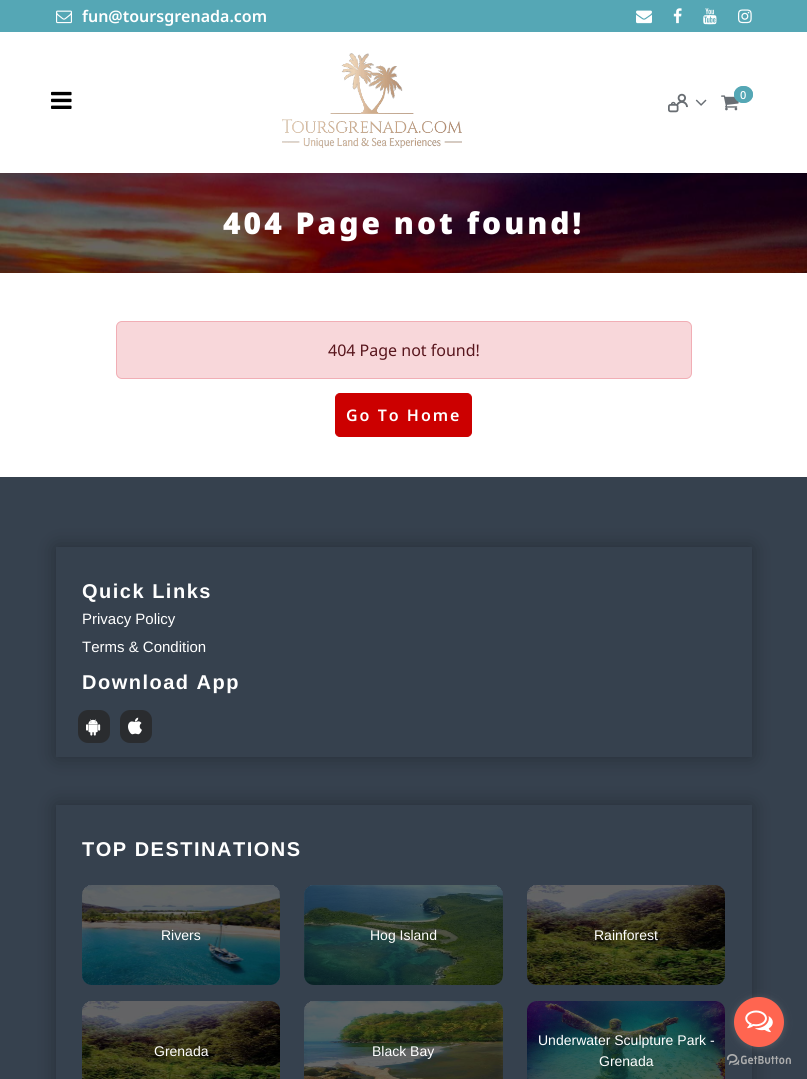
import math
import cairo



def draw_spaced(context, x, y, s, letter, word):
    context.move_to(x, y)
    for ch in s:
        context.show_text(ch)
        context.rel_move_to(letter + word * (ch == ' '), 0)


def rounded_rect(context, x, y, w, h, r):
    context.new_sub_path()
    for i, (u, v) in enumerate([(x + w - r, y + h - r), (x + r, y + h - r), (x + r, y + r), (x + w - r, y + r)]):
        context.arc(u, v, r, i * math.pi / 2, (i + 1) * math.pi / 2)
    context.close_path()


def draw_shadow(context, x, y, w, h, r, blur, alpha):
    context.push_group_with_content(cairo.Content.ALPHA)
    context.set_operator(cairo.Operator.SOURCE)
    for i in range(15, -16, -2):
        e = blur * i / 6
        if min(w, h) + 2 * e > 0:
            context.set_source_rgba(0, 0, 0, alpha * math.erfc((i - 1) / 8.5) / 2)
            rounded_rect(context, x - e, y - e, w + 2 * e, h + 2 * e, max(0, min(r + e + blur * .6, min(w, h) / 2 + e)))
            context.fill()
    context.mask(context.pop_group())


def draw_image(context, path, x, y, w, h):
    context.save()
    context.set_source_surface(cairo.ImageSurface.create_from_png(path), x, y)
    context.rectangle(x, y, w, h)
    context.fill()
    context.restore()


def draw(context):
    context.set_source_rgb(1, 1, 1)
    context.paint()
    context.set_source_rgb(85 / 255, 167 / 255, 181 / 255)
    context.rectangle(0, 0, 807, 32)
    context.fill()
    draw_image(context, "images/1.png", 56, 10, 16, 14)
    draw_image(context, "images/2.png", 636, 10, 16, 14)
    draw_image(context, "images/3.png", 673, 8, 9, 16)
    draw_image(context, "images/4.png", 703, 8, 14, 17)
    draw_image(context, "images/5.png", 738, 9, 14, 15)
    draw_image(context, "images/6.png", 51, 91, 21, 18)
    draw_image(context, "images/7.png", 282, 53, 180, 95)
    draw_image(context, "images/8.png", 668, 93, 20, 20)
    draw_image(context, "images/9.png", 695, 99, 12, 7)
    draw_image(context, "images/10.png", 721, 95, 18, 16)
    context.new_path()
    context.move_to(743.5, 86)
    context.curve_to(748.5, 86, 753, 90, 753, 94.5)
    context.curve_to(753, 99, 748.5, 103, 743.5, 103)
    context.curve_to(738.5, 103, 734, 99, 734, 94.5)
    context.curve_to(734, 90, 738.5, 86, 743.5, 86)
    context.close_path()
    context.fill()
    context.new_path()
    context.move_to(743.5, 86.5)
    context.curve_to(755.5, 86.5, 755.5, 102.5, 743.5, 102.5)
    context.curve_to(731.5, 102.5, 731.5, 86.5, 743.5, 86.5)
    context.close_path()
    context.set_line_width(1)
    context.stroke()
    draw_image(context, "images/11.png", 0, 173, 807, 100)
    context.set_source_rgb(248 / 255, 215 / 255, 218 / 255)
    rounded_rect(context, 116.5, 321.5, 575, 57, 5.5)
    context.fill_preserve()
    context.set_source_rgb(241 / 255, 174 / 255, 181 / 255)
    context.stroke()
    context.set_source_rgb(204 / 255, 0, 0)
    rounded_rect(context, 335.5, 393.5, 136, 43, 4.5)
    context.fill_preserve()
    context.stroke()
    context.set_source_rgb(54 / 255, 65 / 255, 78 / 255)
    context.rectangle(0, 477, 807, 602)
    context.fill()
    context.save()
    context.set_fill_rule(cairo.FillRule.EVEN_ODD)
    context.new_path()
    context.move_to(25, 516)
    context.line_to(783, 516)
    context.line_to(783, 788)
    context.line_to(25, 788)
    context.close_path()
    context.move_to(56, 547)
    context.line_to(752, 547)
    context.line_to(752, 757)
    context.line_to(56, 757)
    context.close_path()
    context.clip()
    context.set_source_rgb(0, 0, 0)
    draw_shadow(context, 56, 547, 696, 210, 0, 10, 0.3)
    context.restore()
    context.set_source_rgb(42 / 255, 44 / 255, 47 / 255)
    rounded_rect(context, 78, 710, 32, 33, 10)
    context.fill()
    draw_image(context, "images/12.png", 86, 719, 15, 17)
    rounded_rect(context, 120, 710, 32, 33, 10)
    context.fill()
    draw_image(context, "images/13.png", 128, 717, 14, 18)
    context.save()
    context.set_fill_rule(cairo.FillRule.EVEN_ODD)
    context.new_path()
    context.move_to(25, 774)
    context.line_to(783, 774)
    context.line_to(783, 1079)
    context.line_to(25, 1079)
    context.close_path()
    context.move_to(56, 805)
    context.line_to(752, 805)
    context.line_to(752, 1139)
    context.line_to(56, 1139)
    context.close_path()
    context.clip()
    context.set_source_rgb(0, 0, 0)
    draw_shadow(context, 56, 805, 696, 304, 0, 10, 0.3)
    context.restore()
    draw_image(context, "images/14.png", 82, 885, 198, 100)
    context.set_source_rgba(0, 0, 0, 0.6)
    rounded_rect(context, 82, 885, 198, 100, 10)
    context.fill()
    draw_image(context, "images/15.png", 304, 885, 199, 100)
    rounded_rect(context, 304, 885, 199, 100, 10)
    context.fill()
    draw_image(context, "images/16.png", 527, 885, 198, 100)
    rounded_rect(context, 527, 885, 198, 100, 10)
    context.fill()
    draw_image(context, "images/17.png", 82, 1001, 198, 78)
    rounded_rect(context, 82, 1001, 198, 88, 10)
    context.fill()
    draw_image(context, "images/18.png", 304, 1001, 199, 78)
    rounded_rect(context, 304, 1001, 199, 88, 10)
    context.fill()
    draw_image(context, "images/19.png", 527, 1001, 198, 78)
    rounded_rect(context, 527, 1001, 198, 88, 10)
    context.fill()
    draw_image(context, "images/21.png", 727, 1054, 64, 11)
    context.set_source_rgb(136 / 255, 136 / 255, 136 / 255)
    draw_shadow(context, 734, 998, 50, 50, 25, 3.5, 0.4)
    context.set_source_rgb(1, 101 / 255, 80 / 255)
    context.arc(759, 1022, 25, 0, 2 * math.pi)
    context.fill()
    draw_image(context, "images/20.png", 745, 1010, 28, 23)
    context.select_font_face("Noto Sans SemiBold")
    context.set_font_size(16)
    context.set_source_rgb(1, 1, 1)
    context.move_to(82, 22)
    context.show_text("fun@toursgrenada.com")
    context.select_font_face("Noto Sans Medium")
    context.set_font_size(11)
    context.move_to(740, 99)
    context.show_text("0")
    context.select_font_face("Noto Sans Black")
    context.set_font_size(30)
    draw_spaced(context, 223, 234, "404 Page not found!", 3, 0)
    context.select_font_face("Noto Sans")
    context.set_font_size(16)
    context.set_source_rgb(88 / 255, 21 / 255, 28 / 255)
    context.move_to(328, 356)
    context.show_text("404 Page not found!")
    context.select_font_face("Noto Sans SemiBold")
    context.set_source_rgb(1, 1, 1)
    draw_spaced(context, 346, 421, "Go To Home", 2, 0)
    context.select_font_face("Liberation Sans", cairo.FontSlant.NORMAL, cairo.FontWeight.BOLD)
    context.set_font_size(20)
    draw_spaced(context, 82, 598, "Quick Links", 1.5, 0)
    context.select_font_face("Liberation Sans")
    context.set_font_size(15)
    context.move_to(82, 624)
    context.show_text("Privacy Policy")
    context.move_to(82, 652)
    context.show_text("Terms & Condition")
    context.select_font_face("Liberation Sans", cairo.FontSlant.NORMAL, cairo.FontWeight.BOLD)
    context.set_font_size(20)
    draw_spaced(context, 82, 689, "Download App", 1.5, 0)
    draw_spaced(context, 82, 856, "TOP DESTINATIONS", 1.5, 0)
    context.select_font_face("Liberation Sans")
    context.set_font_size(14)
    context.move_to(161, 940)
    context.show_text("Rivers")
    context.move_to(370, 940)
    context.show_text("Hog Island")
    context.move_to(594, 940)
    context.show_text("Rainforest")
    context.move_to(154, 1056)
    context.show_text("Grenada")
    context.move_to(372, 1056)
    context.show_text("Black Bay")
    context.move_to(538, 1045)
    context.show_text("Underwater Sculpture Park -")
    context.move_to(599, 1066)
    context.show_text("Grenada")


surface = cairo.ImageSurface(cairo.Format.RGB24, 807, 1079)
context = cairo.Context(surface)
options = cairo.FontOptions()
options.set_hint_metrics(cairo.HintMetrics.OFF)
options.set_hint_style(cairo.HintStyle.NONE)
context.set_font_options(options)
context.set_miter_limit(4)
draw(context)
surface.write_to_png("out.png")
